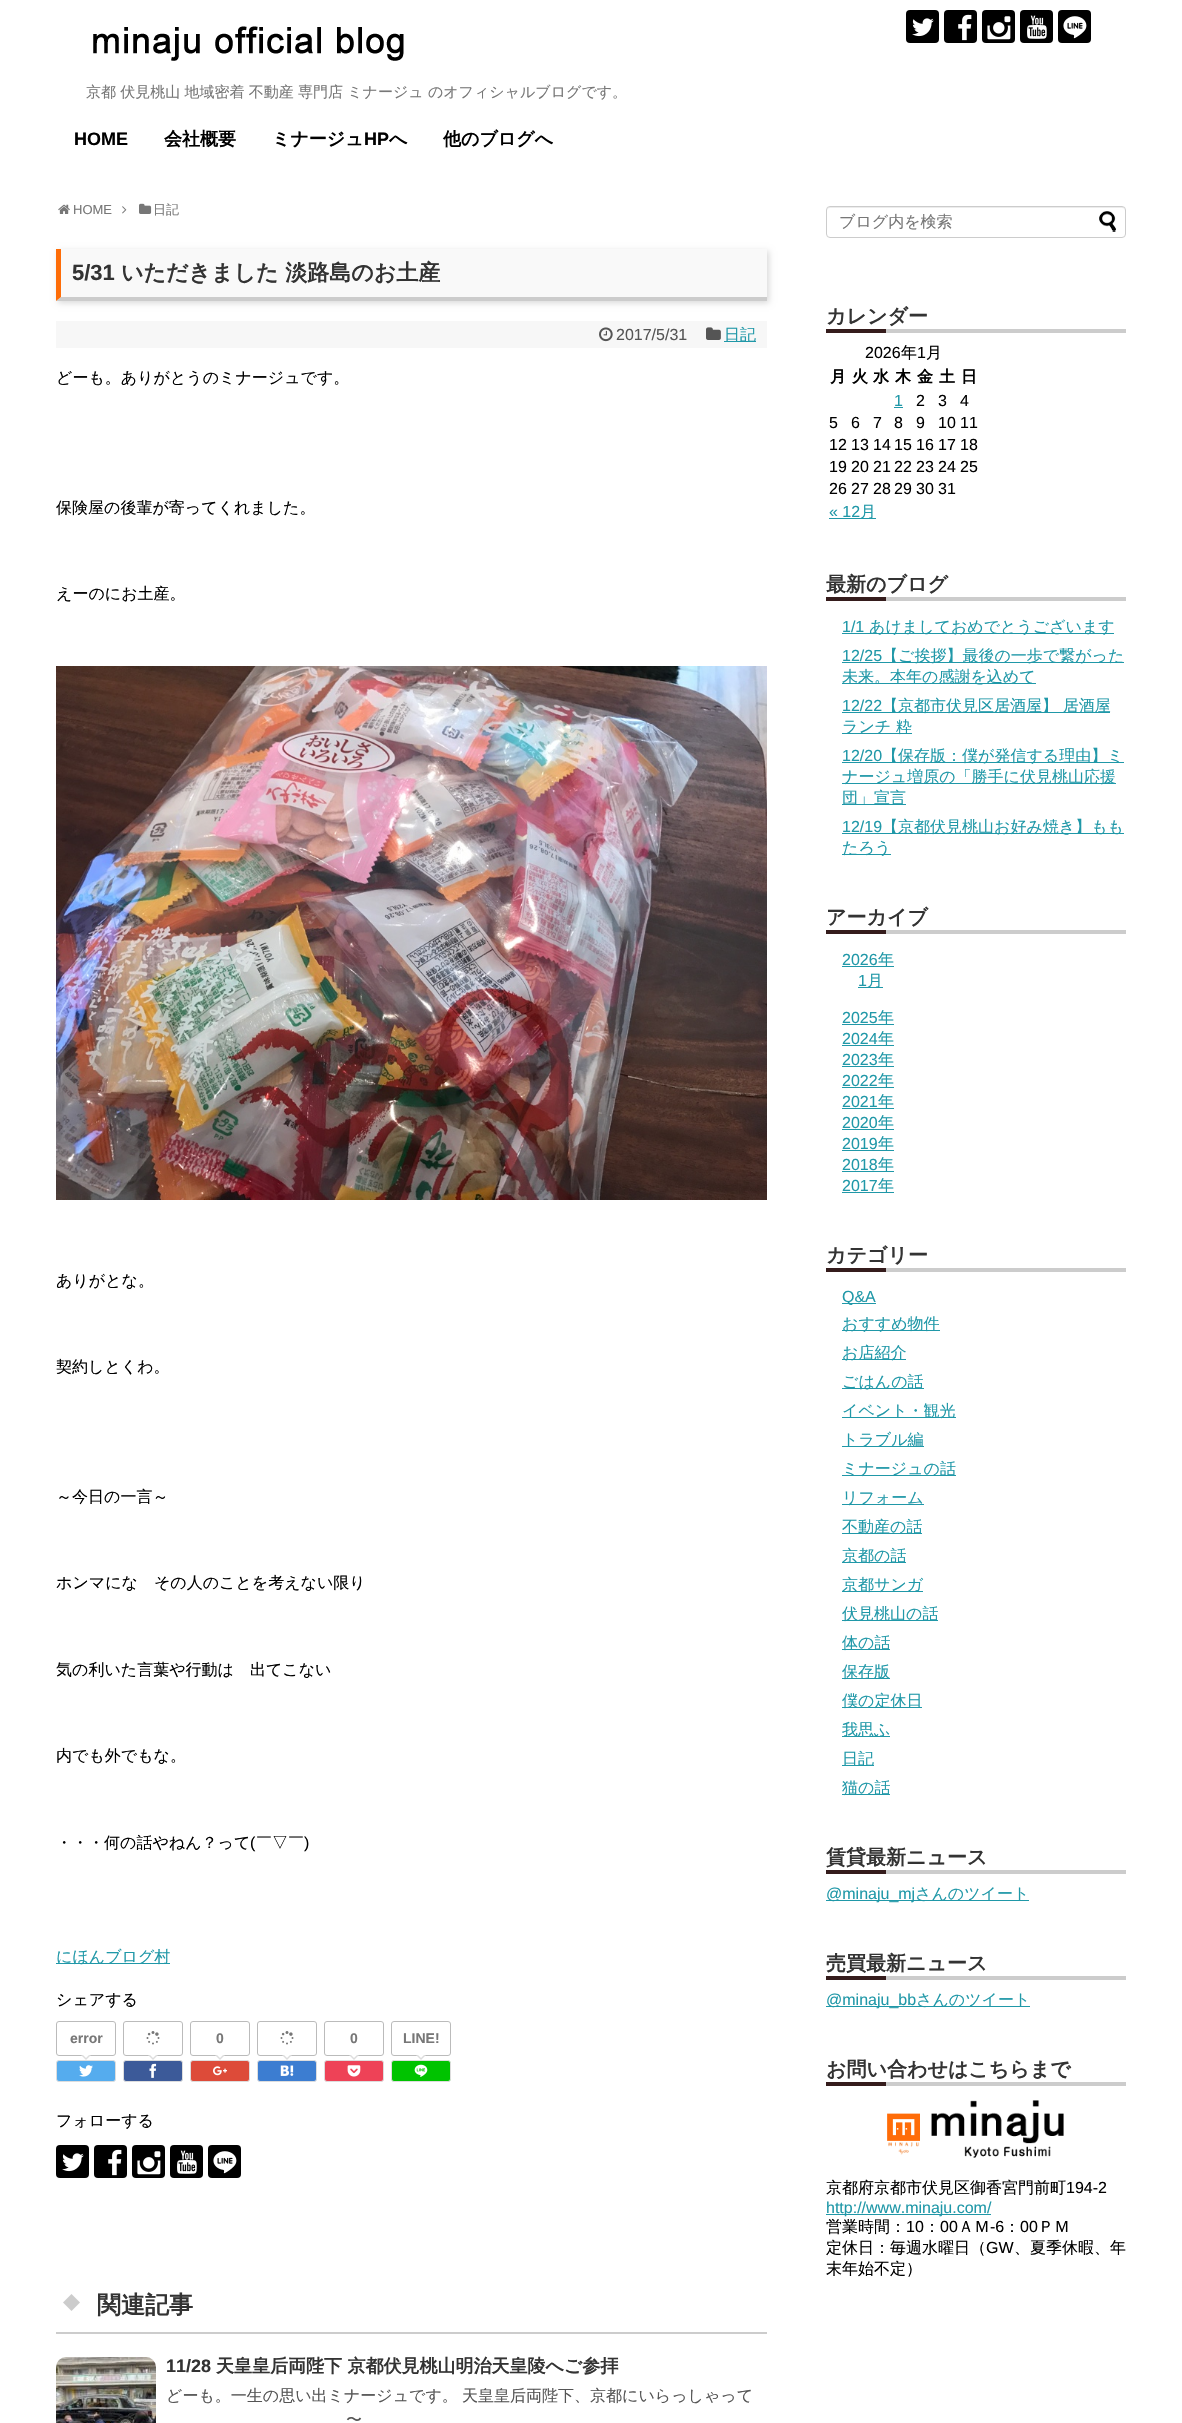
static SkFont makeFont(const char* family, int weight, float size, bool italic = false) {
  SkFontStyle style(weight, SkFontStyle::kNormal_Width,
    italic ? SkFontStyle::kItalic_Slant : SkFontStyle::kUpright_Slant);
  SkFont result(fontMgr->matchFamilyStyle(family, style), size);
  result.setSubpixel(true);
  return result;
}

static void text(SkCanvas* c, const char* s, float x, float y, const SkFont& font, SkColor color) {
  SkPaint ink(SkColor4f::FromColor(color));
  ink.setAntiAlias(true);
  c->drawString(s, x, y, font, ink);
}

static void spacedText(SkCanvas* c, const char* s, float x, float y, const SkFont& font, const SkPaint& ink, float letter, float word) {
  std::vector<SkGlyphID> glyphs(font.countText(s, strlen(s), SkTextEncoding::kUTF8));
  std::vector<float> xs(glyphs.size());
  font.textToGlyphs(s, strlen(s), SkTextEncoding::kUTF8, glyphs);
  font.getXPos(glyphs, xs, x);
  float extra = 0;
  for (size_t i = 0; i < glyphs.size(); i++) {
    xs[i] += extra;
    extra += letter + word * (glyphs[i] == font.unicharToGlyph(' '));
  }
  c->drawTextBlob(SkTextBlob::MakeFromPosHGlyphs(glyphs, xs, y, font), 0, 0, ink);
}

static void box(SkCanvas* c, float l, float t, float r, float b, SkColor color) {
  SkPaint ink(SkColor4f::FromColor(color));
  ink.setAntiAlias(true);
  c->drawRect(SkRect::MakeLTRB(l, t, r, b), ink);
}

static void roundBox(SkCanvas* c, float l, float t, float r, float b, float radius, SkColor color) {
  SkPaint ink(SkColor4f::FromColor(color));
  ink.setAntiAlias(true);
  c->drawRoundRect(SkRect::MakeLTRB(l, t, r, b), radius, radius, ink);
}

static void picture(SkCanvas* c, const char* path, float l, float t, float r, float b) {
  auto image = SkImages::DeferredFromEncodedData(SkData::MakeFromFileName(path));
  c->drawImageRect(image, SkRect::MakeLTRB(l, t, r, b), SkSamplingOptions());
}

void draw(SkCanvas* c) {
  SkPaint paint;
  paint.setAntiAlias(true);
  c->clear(0xffffffff);
  roundBox(c, 906, 10, 939, 43, 4, 0xff000000);
  picture(c, "img_01.png", 912, 18, 934, 37);
  roundBox(c, 944, 10, 977, 43, 4, 0xff000000);
  picture(c, "img_02.png", 958, 14, 972, 41);
  roundBox(c, 982, 10, 1015, 43, 4, 0xff000000);
  picture(c, "img_03.png", 987, 16, 1011, 40);
  roundBox(c, 1020, 10, 1053, 43, 4, 0xff000000);
  picture(c, "img_04.png", 1027, 15, 1047, 39);
  roundBox(c, 1058, 10, 1091, 43, 4, 0xff000000);
  picture(c, "img_05.png", 1063, 16, 1087, 39);
  picture(c, "img_06.png", 93, 26, 404, 61);
  SkFont face1 = makeFont("WenQuanYi Zen Hei", 500, 15);
  paint.setColor(0xff777777);
  spacedText(c, "京都 伏見桃山 地域密着 不動産 専門店 ミナージュ のオフィシャルブログです。", 86, 97, face1, paint, 0, -0.25f);
  SkFont face2 = makeFont("Liberation Sans", 700, 18);
  text(c, "HOME", 74, 145, face2, 0xff000000);
  SkFont face3 = makeFont("WenQuanYi Zen Hei", 700, 18);
  text(c, "会社概要", 164, 145, face3, 0xff000000);
  text(c, "ミナージュ", 272, 145, face3, 0xff000000);
  text(c, "HP", 364, 145, face2, 0xff000000);
  text(c, "へ", 389, 145, face3, 0xff000000);
  text(c, "他のブログへ", 443, 145, face3, 0xff000000);
  picture(c, "img_07.png", 58, 204, 70, 214);
  SkFont face4 = makeFont("Liberation Sans", 400, 13);
  text(c, "HOME", 73, 214, face4, 0xff777777);
  picture(c, "img_08.png", 122, 206, 127, 214);
  picture(c, "img_09.png", 139, 203, 152, 214);
  SkFont face5 = makeFont("WenQuanYi Zen Hei", 500, 13);
  text(c, "日記", 153, 214, face5, 0xff777777);
  paint.setColor(0x26000000);
  paint.setMaskFilter(SkMaskFilter::MakeBlur(kNormal_SkBlurStyle, 3));
  c->drawRect(SkRect::MakeLTRB(58, 251, 769, 303), paint);
  paint.setMaskFilter(nullptr);
  box(c, 56, 249, 767, 301, 0xfff9f9f9);
  paint.setColor(0xffcccccc);
  c->drawPath(SkPathBuilder().moveTo(767, 301).lineTo(56, 301).lineTo(61, 297).lineTo(767, 297).close().detach(), paint);
  paint.setColor(0xfffe6d08);
  c->drawPath(SkPathBuilder().moveTo(56, 301).lineTo(56, 249).lineTo(61, 249).lineTo(61, 297).close().detach(), paint);
  SkFont face6 = makeFont("Liberation Sans", 700, 22);
  text(c, "5/31", 72, 280, face6, 0xff333333);
  SkFont face7 = makeFont("WenQuanYi Zen Hei", 700, 22);
  text(c, "いただきました 淡路島のお土産", 121, 280, face7, 0xff333333);
  box(c, 56, 321, 767, 348, 0xfff7f7f7);
  picture(c, "img_10.png", 599, 327, 613, 342);
  SkFont face8 = makeFont("Liberation Sans", 400, 16);
  text(c, "2017/5/31", 616, 340, face8, 0xff555555);
  picture(c, "img_11.png", 706, 327, 721, 340);
  box(c, 724, 341, 756, 342, 0xff2098a8);
  SkFont face9 = makeFont("WenQuanYi Zen Hei", 500, 16);
  text(c, "日記", 724, 340, face9, 0xff2098a8);
  text(c, "どーも。ありがとうのミナージュです。", 56, 383, face9, 0xff000000);
  text(c, "保険屋の後輩が寄ってくれました。", 56, 513, face9, 0xff000000);
  text(c, "えーのにお土産。", 56, 599, face9, 0xff000000);
  picture(c, "img_12.png", 56, 666, 767, 1200);
  text(c, "ありがとな。", 56, 1286, face9, 0xff000000);
  text(c, "契約しとくわ。", 56, 1372, face9, 0xff000000);
  text(c, "～今日の一言～", 56, 1502, face9, 0xff000000);
  text(c, "ホンマにな　その人のことを考えない限り", 56, 1588, face9, 0xff000000);
  text(c, "気の利いた言葉や行動は　出てこない", 56, 1675, face9, 0xff000000);
  text(c, "内でも外でもな。", 56, 1761, face9, 0xff000000);
  text(c, "・・・何の話やねん？って", 56, 1848, face9, 0xff000000);
  text(c, "(", 250, 1848, face8, 0xff000000);
  text(c, "￣▽￣", 256, 1848, face9, 0xff000000);
  text(c, ")", 304, 1848, face8, 0xff000000);
  box(c, 56, 1963, 170, 1964, 0xff2098a8);
  text(c, "にほんブログ村", 56, 1962, face9, 0xff2098a8);
  text(c, "シェアする", 56, 2005, face9, 0xff000000);
  paint.setStyle(SkPaint::kStroke_Style);
  paint.setStrokeWidth(1);
  paint.setColor(0xffbbbbbb);
  c->drawRoundRect(SkRect::MakeLTRB(56.5f, 2021.5f, 115.5f, 2055.5f), 2.5f, 2.5f, paint);
  SkFont face10 = makeFont("Liberation Sans", 700, 14);
  text(c, "error", 70, 2043, face10, 0xff777777);
  paint.setStyle(SkPaint::kFill_Style);
  paint.setColor(0xffdddddd);
  c->drawPath(SkPathBuilder().moveTo(81, 2055).lineTo(91, 2055).lineTo(86, 2060).close().detach(), paint);
  paint.setColor(0xffffffff);
  c->drawPath(SkPathBuilder().moveTo(83, 2055).lineTo(89, 2055).lineTo(86, 2058).close().detach(), paint);
  paint.setColor(0xff55acee);
  c->drawRoundRect(SkRect::MakeLTRB(56.5f, 2060.5f, 115.5f, 2081.5f), 2.5f, 2.5f, paint);
  paint.setStyle(SkPaint::kStroke_Style);
  paint.setColor(0xffdddddd);
  c->drawRoundRect(SkRect::MakeLTRB(56.5f, 2060.5f, 115.5f, 2081.5f), 2.5f, 2.5f, paint);
  picture(c, "img_13.png", 79, 2065, 93, 2077);
  paint.setColor(0xffbbbbbb);
  c->drawRoundRect(SkRect::MakeLTRB(123.5f, 2021.5f, 182.5f, 2055.5f), 2.5f, 2.5f, paint);
  picture(c, "img_14.png", 146, 2031, 160, 2045);
  paint.setStyle(SkPaint::kFill_Style);
  paint.setColor(0xffdddddd);
  c->drawPath(SkPathBuilder().moveTo(148, 2055).lineTo(158, 2055).lineTo(153, 2060).close().detach(), paint);
  paint.setColor(0xffffffff);
  c->drawPath(SkPathBuilder().moveTo(150, 2055).lineTo(156, 2055).lineTo(153, 2058).close().detach(), paint);
  paint.setColor(0xff3c5a99);
  c->drawRoundRect(SkRect::MakeLTRB(123.5f, 2060.5f, 182.5f, 2081.5f), 2.5f, 2.5f, paint);
  paint.setStyle(SkPaint::kStroke_Style);
  paint.setColor(0xffdddddd);
  c->drawRoundRect(SkRect::MakeLTRB(123.5f, 2060.5f, 182.5f, 2081.5f), 2.5f, 2.5f, paint);
  picture(c, "img_15.png", 149, 2063, 157, 2078);
  paint.setColor(0xffbbbbbb);
  c->drawRoundRect(SkRect::MakeLTRB(190.5f, 2021.5f, 249.5f, 2055.5f), 2.5f, 2.5f, paint);
  text(c, "0", 216, 2043, face10, 0xff777777);
  paint.setStyle(SkPaint::kFill_Style);
  paint.setColor(0xffdddddd);
  c->drawPath(SkPathBuilder().moveTo(215, 2055).lineTo(225, 2055).lineTo(220, 2060).close().detach(), paint);
  paint.setColor(0xffffffff);
  c->drawPath(SkPathBuilder().moveTo(217, 2055).lineTo(223, 2055).lineTo(220, 2058).close().detach(), paint);
  paint.setColor(0xffdd4b39);
  c->drawRoundRect(SkRect::MakeLTRB(190.5f, 2060.5f, 249.5f, 2081.5f), 2.5f, 2.5f, paint);
  paint.setStyle(SkPaint::kStroke_Style);
  paint.setColor(0xffdddddd);
  c->drawRoundRect(SkRect::MakeLTRB(190.5f, 2060.5f, 249.5f, 2081.5f), 2.5f, 2.5f, paint);
  picture(c, "img_16.png", 213, 2066, 227, 2076);
  paint.setColor(0xffbbbbbb);
  c->drawRoundRect(SkRect::MakeLTRB(257.5f, 2021.5f, 316.5f, 2055.5f), 2.5f, 2.5f, paint);
  picture(c, "img_14.png", 280, 2031, 294, 2045);
  paint.setStyle(SkPaint::kFill_Style);
  paint.setColor(0xffdddddd);
  c->drawPath(SkPathBuilder().moveTo(282, 2055).lineTo(292, 2055).lineTo(287, 2060).close().detach(), paint);
  paint.setColor(0xffffffff);
  c->drawPath(SkPathBuilder().moveTo(284, 2055).lineTo(290, 2055).lineTo(287, 2058).close().detach(), paint);
  paint.setColor(0xff3c7dd1);
  c->drawRoundRect(SkRect::MakeLTRB(257.5f, 2060.5f, 316.5f, 2081.5f), 2.5f, 2.5f, paint);
  paint.setStyle(SkPaint::kStroke_Style);
  paint.setColor(0xffdddddd);
  c->drawRoundRect(SkRect::MakeLTRB(257.5f, 2060.5f, 316.5f, 2081.5f), 2.5f, 2.5f, paint);
  picture(c, "img_17.png", 280, 2065, 294, 2076);
  paint.setColor(0xffbbbbbb);
  c->drawRoundRect(SkRect::MakeLTRB(324.5f, 2021.5f, 383.5f, 2055.5f), 2.5f, 2.5f, paint);
  text(c, "0", 350, 2043, face10, 0xff777777);
  paint.setStyle(SkPaint::kFill_Style);
  paint.setColor(0xffdddddd);
  c->drawPath(SkPathBuilder().moveTo(349, 2055).lineTo(359, 2055).lineTo(354, 2060).close().detach(), paint);
  paint.setColor(0xffffffff);
  c->drawPath(SkPathBuilder().moveTo(351, 2055).lineTo(357, 2055).lineTo(354, 2058).close().detach(), paint);
  paint.setColor(0xffee4257);
  c->drawRoundRect(SkRect::MakeLTRB(324.5f, 2060.5f, 383.5f, 2081.5f), 2.5f, 2.5f, paint);
  paint.setStyle(SkPaint::kStroke_Style);
  paint.setColor(0xffdddddd);
  c->drawRoundRect(SkRect::MakeLTRB(324.5f, 2060.5f, 383.5f, 2081.5f), 2.5f, 2.5f, paint);
  picture(c, "img_18.png", 347, 2065, 361, 2077);
  paint.setColor(0xffbbbbbb);
  c->drawRoundRect(SkRect::MakeLTRB(391.5f, 2021.5f, 450.5f, 2055.5f), 2.5f, 2.5f, paint);
  text(c, "LINE!", 403, 2043, face10, 0xff777777);
  paint.setStyle(SkPaint::kFill_Style);
  paint.setColor(0xffdddddd);
  c->drawPath(SkPathBuilder().moveTo(416, 2055).lineTo(426, 2055).lineTo(421, 2060).close().detach(), paint);
  paint.setColor(0xffffffff);
  c->drawPath(SkPathBuilder().moveTo(418, 2055).lineTo(424, 2055).lineTo(421, 2058).close().detach(), paint);
  paint.setColor(0xff00c300);
  c->drawRoundRect(SkRect::MakeLTRB(391.5f, 2060.5f, 450.5f, 2081.5f), 2.5f, 2.5f, paint);
  paint.setStyle(SkPaint::kStroke_Style);
  paint.setColor(0xffdddddd);
  c->drawRoundRect(SkRect::MakeLTRB(391.5f, 2060.5f, 450.5f, 2081.5f), 2.5f, 2.5f, paint);
  picture(c, "img_19.png", 414, 2064, 428, 2077);
  text(c, "フォローする", 56, 2126, face9, 0xff000000);
  roundBox(c, 56, 2145, 89, 2178, 4, 0xff000000);
  picture(c, "img_01.png", 62, 2153, 84, 2172);
  roundBox(c, 94, 2145, 127, 2178, 4, 0xff000000);
  picture(c, "img_02.png", 108, 2149, 122, 2176);
  roundBox(c, 132, 2145, 165, 2178, 4, 0xff000000);
  picture(c, "img_03.png", 137, 2151, 161, 2175);
  roundBox(c, 170, 2145, 203, 2178, 4, 0xff000000);
  picture(c, "img_04.png", 177, 2150, 197, 2174);
  roundBox(c, 208, 2145, 241, 2178, 4, 0xff000000);
  picture(c, "img_05.png", 213, 2151, 237, 2174);
  box(c, 56, 2332, 767, 2334, 0xffcccccc);
  paint.setStyle(SkPaint::kFill_Style);
  paint.setColor(0xffcccccc);
  c->drawPath(SkPathBuilder().moveTo(71.5f, 2294).lineTo(80, 2302.5f).lineTo(71.5f, 2311).lineTo(63, 2302.5f).close().detach(), paint);
  SkFont face11 = makeFont("WenQuanYi Zen Hei", 700, 24);
  text(c, "関連記事", 97, 2313, face11, 0xff333333);
  picture(c, "img_20.png", 56, 2357, 156, 2423);
  text(c, "11/28", 166, 2372, face2, 0xff333333);
  text(c, "天皇皇后両陛下 京都伏見桃山明治天皇陵へご参拝", 216, 2372, face3, 0xff333333);
  text(c, "どーも。一生の思い出ミナージュです。", 166, 2401, face9, 0xff555555);
  text(c, "天皇皇后両陛下、京都にいらっしゃって", 462, 2401, face9, 0xff555555);
  text(c, "〜", 346, 2425, face9, 0xff555555);
  paint.setColor(0xffececec);
  c->drawPath(SkPathBuilder().moveTo(830, 208).lineTo(1122, 208).cubicTo(1124, 208, 1125, 209, 1125, 211).lineTo(1124, 208).lineTo(1123, 207).lineTo(830, 207).cubicTo(828, 207, 827, 209, 827, 211).cubicTo(827, 209, 828, 208, 830, 208).close().detach(), paint);
  paint.setStyle(SkPaint::kStroke_Style);
  paint.setColor(0xffcccccc);
  c->drawRoundRect(SkRect::MakeLTRB(826.5f, 206.5f, 1125.5f, 237.5f), 3.5f, 3.5f, paint);
  text(c, "ブログ内を検索", 839, 227, face9, 0xff777777);
  picture(c, "img_21.png", 1099, 211, 1116, 232);
  box(c, 886, 329, 1126, 333, 0xffcccccc);
  SkFont face12 = makeFont("WenQuanYi Zen Hei", 700, 20);
  text(c, "カレンダー", 826, 323, face12, 0xff333333);
  box(c, 826, 329, 886, 333, 0xff351c1c);
  text(c, "2026", 865, 358, face8, 0xff000000);
  text(c, "年", 901, 358, face9, 0xff000000);
  text(c, "1", 917, 358, face8, 0xff000000);
  text(c, "月", 926, 358, face9, 0xff000000);
  SkFont face13 = makeFont("WenQuanYi Zen Hei", 700, 16);
  text(c, "月", 830, 382, face13, 0xff000000);
  text(c, "火", 852, 382, face13, 0xff000000);
  text(c, "水", 873, 382, face13, 0xff000000);
  text(c, "木", 895, 382, face13, 0xff000000);
  text(c, "金", 917, 382, face13, 0xff000000);
  text(c, "土", 939, 382, face13, 0xff000000);
  text(c, "日", 961, 382, face13, 0xff000000);
  text(c, "1", 894, 406, face8, 0xff2098a8);
  box(c, 894, 407, 903, 408, 0xff2098a8);
  text(c, "2", 916, 406, face8, 0xff000000);
  text(c, "3", 938, 406, face8, 0xff000000);
  text(c, "4", 960, 406, face8, 0xff000000);
  text(c, "5", 829, 428, face8, 0xff000000);
  text(c, "6", 851, 428, face8, 0xff000000);
  text(c, "7", 873, 428, face8, 0xff000000);
  text(c, "8", 894, 428, face8, 0xff000000);
  text(c, "9", 916, 428, face8, 0xff000000);
  text(c, "10", 938, 428, face8, 0xff000000);
  text(c, "11", 960, 428, face8, 0xff000000);
  text(c, "12", 829, 450, face8, 0xff000000);
  text(c, "13", 851, 450, face8, 0xff000000);
  text(c, "14", 873, 450, face8, 0xff000000);
  text(c, "15", 894, 450, face8, 0xff000000);
  text(c, "16", 916, 450, face8, 0xff000000);
  text(c, "17", 938, 450, face8, 0xff000000);
  text(c, "18", 960, 450, face8, 0xff000000);
  text(c, "19", 829, 472, face8, 0xff000000);
  text(c, "20", 851, 472, face8, 0xff000000);
  text(c, "21", 873, 472, face8, 0xff000000);
  text(c, "22", 894, 472, face8, 0xff000000);
  text(c, "23", 916, 472, face8, 0xff000000);
  text(c, "24", 938, 472, face8, 0xff000000);
  text(c, "25", 960, 472, face8, 0xff000000);
  text(c, "26", 829, 494, face8, 0xff000000);
  text(c, "27", 851, 494, face8, 0xff000000);
  text(c, "28", 873, 494, face8, 0xff000000);
  text(c, "29", 894, 494, face8, 0xff000000);
  text(c, "30", 916, 494, face8, 0xff000000);
  text(c, "31", 938, 494, face8, 0xff000000);
  text(c, "« 12", 829, 517, face8, 0xff2098a8);
  box(c, 829, 518, 876, 519, 0xff2098a8);
  text(c, "月", 860, 517, face9, 0xff2098a8);
  box(c, 886, 597, 1126, 601, 0xffcccccc);
  text(c, "最新のブログ", 826, 591, face12, 0xff333333);
  box(c, 826, 597, 886, 601, 0xff351c1c);
  text(c, "1/1", 842, 632, face8, 0xff2098a8);
  box(c, 842, 633, 1114, 634, 0xff2098a8);
  text(c, "あけましておめでとうございます", 869, 632, face9, 0xff2098a8);
  text(c, "12/25", 842, 661, face8, 0xff2098a8);
  box(c, 842, 662, 1124, 663, 0xff2098a8);
  text(c, "【ご挨拶】最後の一歩で繋がった", 882, 661, face9, 0xff2098a8);
  box(c, 842, 683, 1036, 684, 0xff2098a8);
  text(c, "未来。本年の感謝を込めて", 842, 682, face9, 0xff2098a8);
  text(c, "12/22", 842, 711, face8, 0xff2098a8);
  box(c, 842, 712, 1110, 713, 0xff2098a8);
  text(c, "【京都市伏見区居酒屋】 居酒屋", 882, 711, face9, 0xff2098a8);
  box(c, 842, 733, 912, 734, 0xff2098a8);
  text(c, "ランチ 粋", 842, 732, face9, 0xff2098a8);
  text(c, "12/20", 842, 761, face8, 0xff2098a8);
  box(c, 842, 762, 1124, 763, 0xff2098a8);
  text(c, "【保存版：僕が発信する理由】ミ", 882, 761, face9, 0xff2098a8);
  box(c, 842, 783, 1116, 784, 0xff2098a8);
  text(c, "ナージュ増原の「勝手に伏見桃山応援", 842, 782, face9, 0xff2098a8);
  box(c, 842, 804, 906, 805, 0xff2098a8);
  text(c, "団」宣言", 842, 803, face9, 0xff2098a8);
  text(c, "12/19", 842, 832, face8, 0xff2098a8);
  box(c, 842, 833, 1124, 834, 0xff2098a8);
  text(c, "【京都伏見桃山お好み焼き】もも", 882, 832, face9, 0xff2098a8);
  box(c, 842, 854, 891, 855, 0xff2098a8);
  text(c, "たろう", 842, 853, face9, 0xff2098a8);
  box(c, 886, 930, 1126, 934, 0xffcccccc);
  text(c, "アーカイブ", 826, 924, face12, 0xff333333);
  box(c, 826, 930, 886, 934, 0xff351c1c);
  text(c, "2026", 842, 965, face8, 0xff2098a8);
  box(c, 842, 966, 894, 967, 0xff2098a8);
  text(c, "年", 878, 965, face9, 0xff2098a8);
  text(c, "1", 858, 986, face8, 0xff2098a8);
  box(c, 858, 987, 883, 988, 0xff2098a8);
  text(c, "月", 867, 986, face9, 0xff2098a8);
  text(c, "2025", 842, 1023, face8, 0xff2098a8);
  box(c, 842, 1024, 894, 1025, 0xff2098a8);
  text(c, "年", 878, 1023, face9, 0xff2098a8);
  text(c, "2024", 842, 1044, face8, 0xff2098a8);
  box(c, 842, 1045, 894, 1046, 0xff2098a8);
  text(c, "年", 878, 1044, face9, 0xff2098a8);
  text(c, "2023", 842, 1065, face8, 0xff2098a8);
  box(c, 842, 1066, 894, 1067, 0xff2098a8);
  text(c, "年", 878, 1065, face9, 0xff2098a8);
  text(c, "2022", 842, 1086, face8, 0xff2098a8);
  box(c, 842, 1087, 894, 1088, 0xff2098a8);
  text(c, "年", 878, 1086, face9, 0xff2098a8);
  text(c, "2021", 842, 1107, face8, 0xff2098a8);
  box(c, 842, 1108, 894, 1109, 0xff2098a8);
  text(c, "年", 878, 1107, face9, 0xff2098a8);
  text(c, "2020", 842, 1128, face8, 0xff2098a8);
  box(c, 842, 1129, 894, 1130, 0xff2098a8);
  text(c, "年", 878, 1128, face9, 0xff2098a8);
  text(c, "2019", 842, 1149, face8, 0xff2098a8);
  box(c, 842, 1150, 894, 1151, 0xff2098a8);
  text(c, "年", 878, 1149, face9, 0xff2098a8);
  text(c, "2018", 842, 1170, face8, 0xff2098a8);
  box(c, 842, 1171, 894, 1172, 0xff2098a8);
  text(c, "年", 878, 1170, face9, 0xff2098a8);
  text(c, "2017", 842, 1191, face8, 0xff2098a8);
  box(c, 842, 1192, 894, 1193, 0xff2098a8);
  text(c, "年", 878, 1191, face9, 0xff2098a8);
  box(c, 886, 1268, 1126, 1272, 0xffcccccc);
  text(c, "カテゴリー", 826, 1262, face12, 0xff333333);
  box(c, 826, 1268, 886, 1272, 0xff351c1c);
  box(c, 842, 1303, 876, 1304, 0xff2098a8);
  text(c, "Q&A", 842, 1302, face8, 0xff2098a8);
  box(c, 842, 1330, 940, 1331, 0xff2098a8);
  text(c, "おすすめ物件", 842, 1329, face9, 0xff2098a8);
  box(c, 842, 1359, 906, 1360, 0xff2098a8);
  text(c, "お店紹介", 842, 1358, face9, 0xff2098a8);
  box(c, 842, 1388, 924, 1389, 0xff2098a8);
  text(c, "ごはんの話", 842, 1387, face9, 0xff2098a8);
  box(c, 842, 1417, 956, 1418, 0xff2098a8);
  text(c, "イベント・観光", 842, 1416, face9, 0xff2098a8);
  box(c, 842, 1446, 924, 1447, 0xff2098a8);
  text(c, "トラブル編", 842, 1445, face9, 0xff2098a8);
  box(c, 842, 1475, 956, 1476, 0xff2098a8);
  text(c, "ミナージュの話", 842, 1474, face9, 0xff2098a8);
  box(c, 842, 1504, 924, 1505, 0xff2098a8);
  text(c, "リフォーム", 842, 1503, face9, 0xff2098a8);
  box(c, 842, 1533, 922, 1534, 0xff2098a8);
  text(c, "不動産の話", 842, 1532, face9, 0xff2098a8);
  box(c, 842, 1562, 906, 1563, 0xff2098a8);
  text(c, "京都の話", 842, 1561, face9, 0xff2098a8);
  box(c, 842, 1591, 923, 1592, 0xff2098a8);
  text(c, "京都サンガ", 842, 1590, face9, 0xff2098a8);
  box(c, 842, 1620, 938, 1621, 0xff2098a8);
  text(c, "伏見桃山の話", 842, 1619, face9, 0xff2098a8);
  box(c, 842, 1649, 890, 1650, 0xff2098a8);
  text(c, "体の話", 842, 1648, face9, 0xff2098a8);
  box(c, 842, 1678, 890, 1679, 0xff2098a8);
  text(c, "保存版", 842, 1677, face9, 0xff2098a8);
  box(c, 842, 1707, 922, 1708, 0xff2098a8);
  text(c, "僕の定休日", 842, 1706, face9, 0xff2098a8);
  box(c, 842, 1736, 890, 1737, 0xff2098a8);
  text(c, "我思ふ", 842, 1735, face9, 0xff2098a8);
  box(c, 842, 1765, 874, 1766, 0xff2098a8);
  text(c, "日記", 842, 1764, face9, 0xff2098a8);
  box(c, 842, 1794, 890, 1795, 0xff2098a8);
  text(c, "猫の話", 842, 1793, face9, 0xff2098a8);
  box(c, 886, 1870, 1126, 1874, 0xffcccccc);
  text(c, "賃貸最新ニュース", 826, 1864, face12, 0xff333333);
  box(c, 826, 1870, 886, 1874, 0xff351c1c);
  box(c, 826, 1900, 1029, 1901, 0xff2098a8);
  text(c, "@minaju_mj", 826, 1899, face8, 0xff2098a8);
  text(c, "さんのツイート", 915, 1899, face9, 0xff2098a8);
  box(c, 886, 1976, 1126, 1980, 0xffcccccc);
  text(c, "売買最新ニュース", 826, 1970, face12, 0xff333333);
  box(c, 826, 1976, 886, 1980, 0xff351c1c);
  box(c, 826, 2006, 1030, 2007, 0xff2098a8);
  text(c, "@minaju_bb", 826, 2005, face8, 0xff2098a8);
  text(c, "さんのツイート", 916, 2005, face9, 0xff2098a8);
  box(c, 886, 2082, 1126, 2086, 0xffcccccc);
  text(c, "お問い合わせはこちらまで", 826, 2076, face12, 0xff333333);
  box(c, 826, 2082, 886, 2086, 0xff351c1c);
  picture(c, "img_22.png", 887, 2100, 1064, 2158);
  text(c, "京都府京都市伏見区御香宮門前町", 826, 2193, face9, 0xff000000);
  text(c, "194-2", 1066, 2193, face8, 0xff000000);
  box(c, 826, 2214, 991, 2215, 0xff2098a8);
  text(c, "http://www.minaju.com/", 826, 2213, face8, 0xff2098a8);
  text(c, "営業時間：", 826, 2232, face9, 0xff000000);
  text(c, "10", 906, 2232, face8, 0xff000000);
  text(c, "：", 924, 2232, face9, 0xff000000);
  text(c, "00", 940, 2232, face8, 0xff000000);
  text(c, "ＡＭ", 958, 2232, face9, 0xff000000);
  text(c, "-6", 990, 2232, face8, 0xff000000);
  text(c, "：", 1004, 2232, face9, 0xff000000);
  text(c, "00", 1020, 2232, face8, 0xff000000);
  text(c, "ＰＭ", 1038, 2232, face9, 0xff000000);
  text(c, "定休日：毎週水曜日（", 826, 2253, face9, 0xff000000);
  text(c, "GW", 986, 2253, face8, 0xff000000);
  text(c, "、夏季休暇、年", 1014, 2253, face9, 0xff000000);
  text(c, "末年始不定）", 826, 2274, face9, 0xff000000);
}
